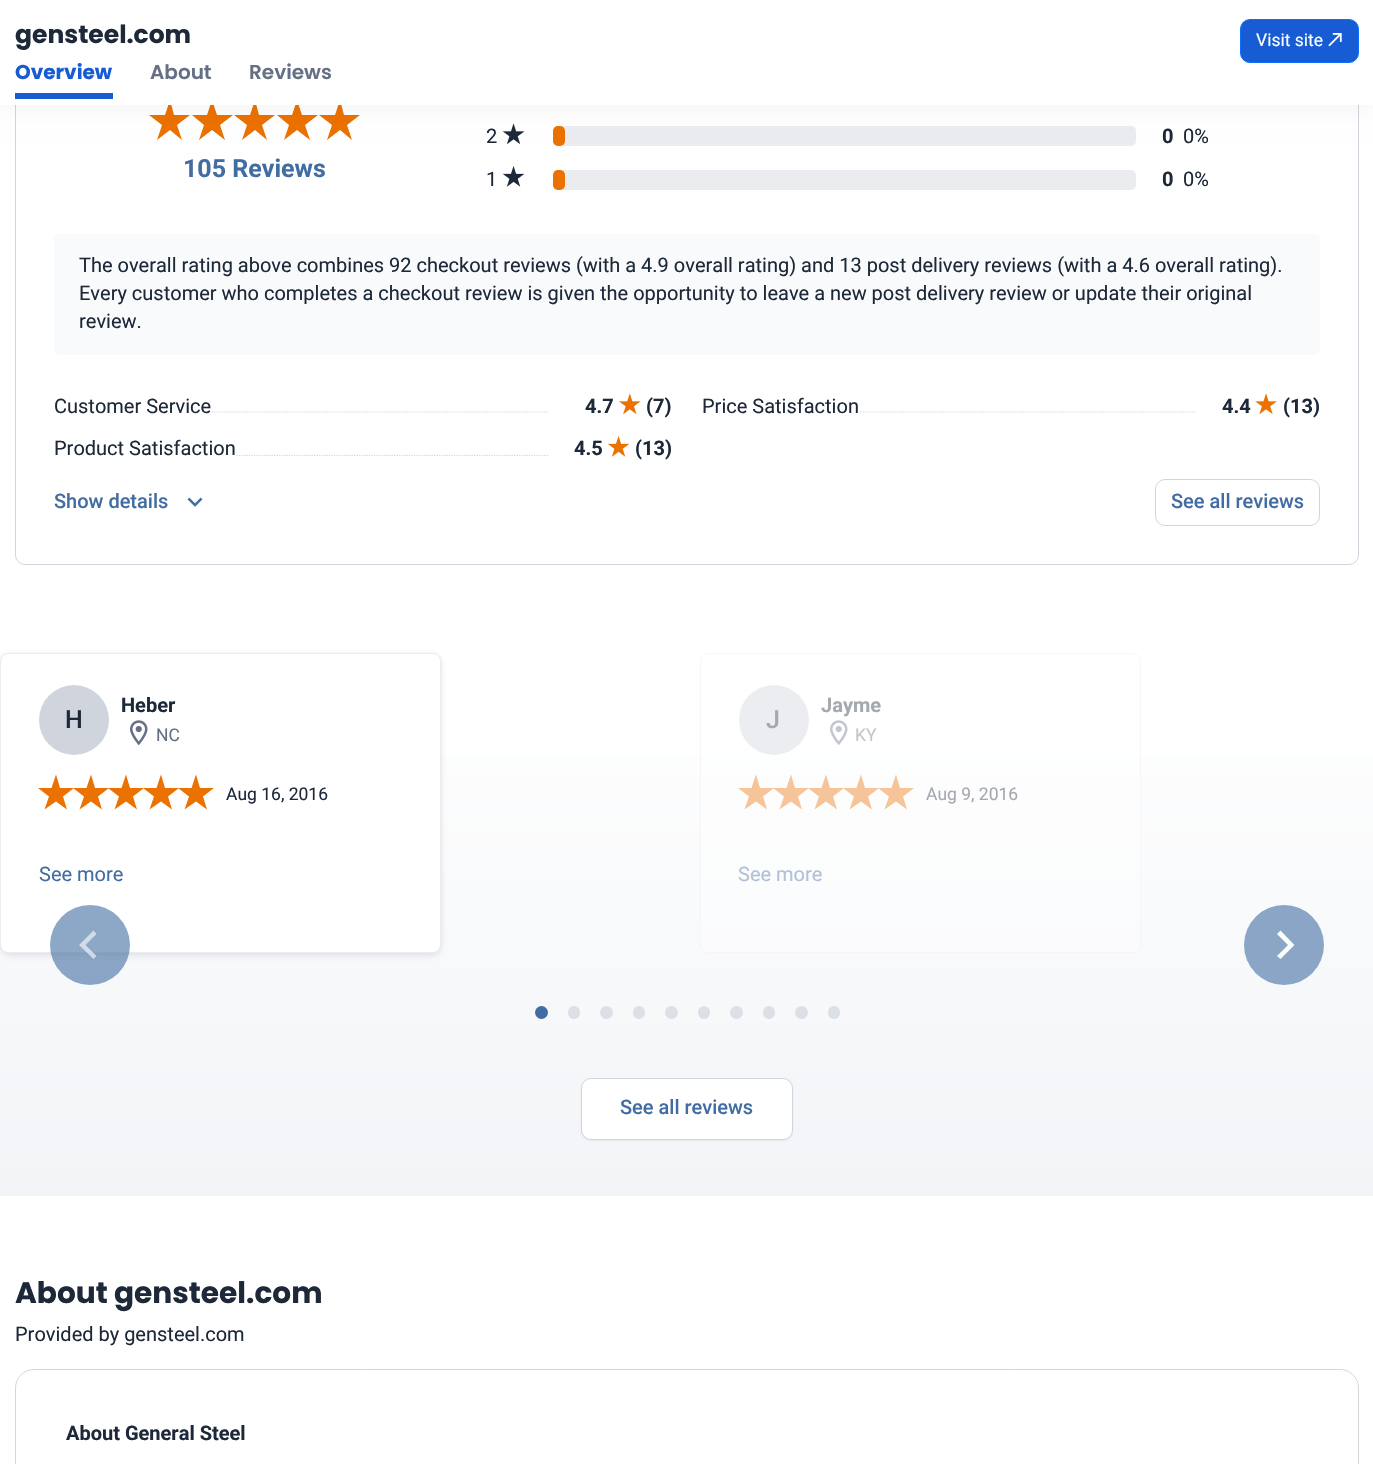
static SkFont makeFont(const char* family, int weight, float size, bool italic = false) {
  SkFontStyle style(weight, SkFontStyle::kNormal_Width,
    italic ? SkFontStyle::kItalic_Slant : SkFontStyle::kUpright_Slant);
  SkFont result(fontMgr->matchFamilyStyle(family, style), size);
  result.setSubpixel(true);
  return result;
}

static void text(SkCanvas* c, const char* s, float x, float y, const SkFont& font, SkColor color) {
  SkPaint ink(SkColor4f::FromColor(color));
  ink.setAntiAlias(true);
  c->drawString(s, x, y, font, ink);
}

static void box(SkCanvas* c, float l, float t, float r, float b, SkColor color) {
  SkPaint ink(SkColor4f::FromColor(color));
  ink.setAntiAlias(true);
  c->drawRect(SkRect::MakeLTRB(l, t, r, b), ink);
}

static void roundBox(SkCanvas* c, float l, float t, float r, float b, float radius, SkColor color) {
  SkPaint ink(SkColor4f::FromColor(color));
  ink.setAntiAlias(true);
  c->drawRoundRect(SkRect::MakeLTRB(l, t, r, b), radius, radius, ink);
}

static void picture(SkCanvas* c, const char* path, float l, float t, float r, float b) {
  auto image = SkImages::DeferredFromEncodedData(SkData::MakeFromFileName(path));
  c->drawImageRect(image, SkRect::MakeLTRB(l, t, r, b), SkSamplingOptions());
}

void draw(SkCanvas* c) {
  SkPaint paint;
  paint.setAntiAlias(true);
  c->clear(0xffffffff);
  paint.setStyle(SkPaint::kStroke_Style);
  paint.setStrokeWidth(1);
  paint.setColor(0xffd0d5dd);
  c->drawRoundRect(SkRect::MakeLTRB(15.5f, -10.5f, 1358.5f, 564.5f), 9.5f, 9.5f, paint);
  paint.setStyle(SkPaint::kFill_Style);
  paint.setColor(0xffeb7100);
  c->drawPath(SkPathBuilder().moveTo(170, 100).lineTo(174, 115).lineTo(190, 115).lineTo(177, 125).lineTo(182, 140).lineTo(170, 130).lineTo(157, 140).lineTo(162, 125).lineTo(149, 115).lineTo(165, 115).close().detach(), paint);
  c->drawPath(SkPathBuilder().moveTo(212, 100).lineTo(217, 115).lineTo(233, 115).lineTo(220, 125).lineTo(225, 140).lineTo(212, 130).lineTo(199, 140).lineTo(204, 125).lineTo(192, 115).lineTo(207, 115).close().detach(), paint);
  c->drawPath(SkPathBuilder().moveTo(255, 100).lineTo(259, 115).lineTo(275, 115).lineTo(262, 125).lineTo(267, 140).lineTo(255, 130).lineTo(242, 140).lineTo(247, 125).lineTo(234, 115).lineTo(250, 115).close().detach(), paint);
  c->drawPath(SkPathBuilder().moveTo(297, 100).lineTo(302, 115).lineTo(318, 115).lineTo(305, 125).lineTo(310, 140).lineTo(297, 130).lineTo(284, 140).lineTo(289, 125).lineTo(277, 115).lineTo(292, 115).close().detach(), paint);
  c->drawPath(SkPathBuilder().moveTo(340, 100).lineTo(344, 115).lineTo(360, 115).lineTo(347, 125).lineTo(352, 140).lineTo(340, 130).lineTo(327, 140).lineTo(332, 125).lineTo(319, 115).lineTo(335, 115).close().detach(), paint);
  picture(c, "img_02.png", 502, 123, 525, 145);
  roundBox(c, 553, 126, 1136, 146, 5, 0xffeaecf0);
  roundBox(c, 553, 126, 565, 146, 5, 0xffeb7100);
  paint.setColor(0x0d000000);
  paint.setMaskFilter(SkMaskFilter::MakeBlur(kNormal_SkBlurStyle, 12.5f));
  c->drawRect(SkRect::MakeLTRB(-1, -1, 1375, 106), paint);
  paint.setMaskFilter(nullptr);
  box(c, 0, 0, 1373, 105, 0xffffffff);
  SkFont face1 = makeFont("Poppins", 700, 25);
  text(c, "gensteel.com", 15, 43, face1, 0xff1d2939);
  SkFont face2 = makeFont("Poppins", 700, 20);
  text(c, "Overview", 15, 79, face2, 0xff175cd3);
  box(c, 15, 93, 113, 99, 0xff175cd3);
  SkFont face3 = makeFont("Poppins", 600, 20);
  text(c, "About", 150, 79, face3, 0xff667085);
  text(c, "Reviews", 249, 79, face3, 0xff667085);
  paint.setColor(0xff175cd3);
  c->drawRoundRect(SkRect::MakeLTRB(1240.5f, 19.5f, 1358.5f, 62.5f), 9.5f, 9.5f, paint);
  paint.setStyle(SkPaint::kStroke_Style);
  paint.setColor(0xff0d6efd);
  c->drawRoundRect(SkRect::MakeLTRB(1240.5f, 19.5f, 1358.5f, 62.5f), 9.5f, 9.5f, paint);
  SkFont face4 = makeFont("Roboto", 400, 17.5f);
  text(c, "Visit site", 1256, 46, face4, 0xffffffff);
  picture(c, "img_01.png", 1328, 33, 1342, 47);
  SkFont face5 = makeFont("Roboto", 700, 25);
  text(c, "105 Reviews", 183, 177, face5, 0xff416da2);
  SkFont face6 = makeFont("Roboto", 400, 20);
  text(c, "2", 486, 143, face6, 0xff1d2939);
  SkFont face7 = makeFont("Roboto", 700, 20);
  text(c, "0", 1162, 143, face7, 0xff1d2939);
  text(c, "0%", 1183, 143, face6, 0xff1d2939);
  text(c, "1", 486, 186, face6, 0xff1d2939);
  picture(c, "img_03.png", 502, 166, 525, 187);
  roundBox(c, 553, 170, 1136, 190, 5, 0xffeaecf0);
  roundBox(c, 553, 170, 565, 190, 5, 0xffeb7100);
  text(c, "0", 1162, 186, face7, 0xff1d2939);
  text(c, "0%", 1183, 186, face6, 0xff1d2939);
  roundBox(c, 54, 234, 1320, 355, 5, 0xfff9fafb);
  text(c, "The overall rating above combines 92 checkout reviews (with a 4.9 overall rating) and 13 post delivery reviews (with a 4.6 overall rating).", 79, 272, face6, 0xff1d2939);
  text(c, "Every customer who completes a checkout review is given the opportunity to leave a new post delivery review or update their original", 79, 300, face6, 0xff1d2939);
  text(c, "review.", 79, 328, face6, 0xff1d2939);
  paint.setStrokeWidth(1.2f);
  paint.setColor(0xffd0d5dd);
  paint.setPathEffect(SkDashPathEffect::Make({{1.25f, 1.25f}}, 0));
  c->drawPath(SkPathBuilder().moveTo(54, 412).lineTo(549, 412).detach(), paint);
  paint.setPathEffect(nullptr);
  box(c, 54, 411, 211, 413, 0xffffffff);
  text(c, "Customer Service", 54, 413, face6, 0xff1d2939);
  text(c, "4.7", 585, 413, face7, 0xff1d2939);
  picture(c, "img_04.png", 619, 393, 641, 415);
  text(c, "(7)", 646, 413, face7, 0xff1d2939);
  paint.setPathEffect(SkDashPathEffect::Make({{1.25f, 1.25f}}, 0));
  c->drawPath(SkPathBuilder().moveTo(702.5f, 412).lineTo(1196, 412).detach(), paint);
  paint.setPathEffect(nullptr);
  box(c, 703, 411, 859, 413, 0xffffffff);
  text(c, "Price Satisfaction", 702, 413, face6, 0xff1d2939);
  text(c, "4.4", 1222, 413, face7, 0xff1d2939);
  picture(c, "img_05.png", 1255, 393, 1277, 415);
  text(c, "(13)", 1283, 413, face7, 0xff1d2939);
  paint.setPathEffect(SkDashPathEffect::Make({{1.25f, 1.25f}}, 0));
  c->drawPath(SkPathBuilder().moveTo(54, 455.5f).lineTo(549, 455.5f).detach(), paint);
  paint.setPathEffect(nullptr);
  box(c, 54, 454, 235, 457, 0xffffffff);
  text(c, "Product Satisfaction", 54, 455, face6, 0xff1d2939);
  text(c, "4.5", 574, 455, face7, 0xff1d2939);
  picture(c, "img_06.png", 607, 436, 630, 457);
  text(c, "(13)", 635, 455, face7, 0xff1d2939);
  SkFont face8 = makeFont("Roboto", 500, 20);
  text(c, "Show details", 54, 508, face8, 0xff416da2);
  picture(c, "img_07.png", 187, 497, 203, 507);
  paint.setStrokeWidth(1);
  c->drawRoundRect(SkRect::MakeLTRB(1155.5f, 479.5f, 1319.5f, 525.5f), 9.5f, 9.5f, paint);
  text(c, "See all reviews", 1171, 508, face8, 0xff416da2);
  paint.setStyle(SkPaint::kFill_Style);
  {
    const SkColor colors[] = {0xffffffff, 0xfff2f4f7};
    const float stops[] = {0, 1};
    const SkPoint ends[] = {{687, 653}, {687, 1196}};
    paint.setShader(SkGradientShader::MakeLinear(ends, colors, stops, 2, SkTileMode::kClamp));
    paint.setAlpha(255);
  }
  c->drawRect(SkRect::MakeLTRB(0, 757, 1373, 1196), paint);
  paint.setShader(nullptr);
  paint.setColor(0x0f101828);
  paint.setMaskFilter(SkMaskFilter::MakeBlur(kNormal_SkBlurStyle, 2.5f));
  c->drawRoundRect(SkRect::MakeLTRB(0, 653, 441, 953), 8, 8, paint);
  paint.setMaskFilter(nullptr);
  paint.setColor(0x1a101828);
  paint.setMaskFilter(SkMaskFilter::MakeBlur(kNormal_SkBlurStyle, 5));
  c->drawRoundRect(SkRect::MakeLTRB(3, 660, 439, 955), 5, 5, paint);
  paint.setMaskFilter(nullptr);
  paint.setColor(0xffffffff);
  c->drawRoundRect(SkRect::MakeLTRB(0.5f, 653.5f, 440.5f, 952.5f), 7.5f, 7.5f, paint);
  paint.setStyle(SkPaint::kStroke_Style);
  paint.setColor(0xffeaecf0);
  c->drawRoundRect(SkRect::MakeLTRB(0.5f, 653.5f, 440.5f, 952.5f), 7.5f, 7.5f, paint);
  paint.setStyle(SkPaint::kFill_Style);
  paint.setColor(0xffd0d5dd);
  c->drawCircle(74, 720, 35, paint);
  SkFont face9 = makeFont("Roboto", 500, 25);
  text(c, "H", 65, 728, face9, 0xff1d2939);
  text(c, "Heber", 121, 712, face7, 0xff1d2939);
  picture(c, "img_08.png", 130, 720, 148, 746);
  text(c, "NC", 156, 741, face4, 0xff667085);
  paint.setColor(0xffeb7100);
  c->drawPath(SkPathBuilder().moveTo(56, 774.5f).lineTo(60, 788).lineTo(74, 788).lineTo(63, 796.5f).lineTo(67, 809.5f).lineTo(56, 801.5f).lineTo(44.5f, 809.5f).lineTo(49, 796.5f).lineTo(38, 788).lineTo(51.5f, 788).close().detach(), paint);
  c->drawPath(SkPathBuilder().moveTo(91, 774.5f).lineTo(95, 788).lineTo(109, 788).lineTo(98, 796.5f).lineTo(102, 809.5f).lineTo(91, 801.5f).lineTo(79.5f, 809.5f).lineTo(84, 796.5f).lineTo(73, 788).lineTo(86.5f, 788).close().detach(), paint);
  c->drawPath(SkPathBuilder().moveTo(126, 774.5f).lineTo(130, 788).lineTo(144, 788).lineTo(133, 796.5f).lineTo(137, 809.5f).lineTo(126, 801.5f).lineTo(114.5f, 809.5f).lineTo(119, 796.5f).lineTo(108, 788).lineTo(121.5f, 788).close().detach(), paint);
  c->drawPath(SkPathBuilder().moveTo(161, 774.5f).lineTo(165, 788).lineTo(179, 788).lineTo(168, 796.5f).lineTo(172, 809.5f).lineTo(161, 801.5f).lineTo(149.5f, 809.5f).lineTo(154, 796.5f).lineTo(143, 788).lineTo(156.5f, 788).close().detach(), paint);
  c->drawPath(SkPathBuilder().moveTo(196, 774.5f).lineTo(200, 788).lineTo(214, 788).lineTo(203, 796.5f).lineTo(207, 809.5f).lineTo(196, 801.5f).lineTo(184.5f, 809.5f).lineTo(189, 796.5f).lineTo(178, 788).lineTo(191.5f, 788).close().detach(), paint);
  text(c, "Aug 16, 2016", 226, 800, face4, 0xff1d2939);
  text(c, "See more", 39, 881, face6, 0xff416da2);
  roundBox(c, 700, 653, 1141, 953, 8, 0x66ffffff);
  paint.setStyle(SkPaint::kStroke_Style);
  paint.setColor(0x66eaecf0);
  c->drawRoundRect(SkRect::MakeLTRB(700.5f, 653.5f, 1140.5f, 952.5f), 7.5f, 7.5f, paint);
  paint.setStyle(SkPaint::kFill_Style);
  paint.setColor(0xffebedf1);
  c->drawCircle(774, 720, 35, paint);
  text(c, "J", 766, 728, face9, 0xffa4a9af);
  text(c, "Jayme", 821, 712, face7, 0xffa4a9af);
  picture(c, "img_09.png", 830, 720, 848, 746);
  text(c, "KY", 855, 741, face4, 0xffc1c5ce);
  paint.setColor(0xfff5c498);
  c->drawPath(SkPathBuilder().moveTo(756, 774.5f).lineTo(760, 788).lineTo(774, 788).lineTo(763, 796.5f).lineTo(767, 809.5f).lineTo(756, 801.5f).lineTo(744.5f, 809.5f).lineTo(749, 796.5f).lineTo(738, 788).lineTo(751.5f, 788).close().detach(), paint);
  c->drawPath(SkPathBuilder().moveTo(791, 774.5f).lineTo(795, 788).lineTo(809, 788).lineTo(798, 796.5f).lineTo(802, 809.5f).lineTo(791, 801.5f).lineTo(779.5f, 809.5f).lineTo(784, 796.5f).lineTo(773, 788).lineTo(786.5f, 788).close().detach(), paint);
  c->drawPath(SkPathBuilder().moveTo(826, 774.5f).lineTo(830, 788).lineTo(844, 788).lineTo(833, 796.5f).lineTo(837, 809.5f).lineTo(826, 801.5f).lineTo(814.5f, 809.5f).lineTo(819, 796.5f).lineTo(808, 788).lineTo(821.5f, 788).close().detach(), paint);
  c->drawPath(SkPathBuilder().moveTo(861, 774.5f).lineTo(865, 788).lineTo(879, 788).lineTo(868, 796.5f).lineTo(872, 809.5f).lineTo(861, 801.5f).lineTo(849.5f, 809.5f).lineTo(854, 796.5f).lineTo(843, 788).lineTo(856.5f, 788).close().detach(), paint);
  c->drawPath(SkPathBuilder().moveTo(896, 774.5f).lineTo(900, 788).lineTo(914, 788).lineTo(903, 796.5f).lineTo(907, 809.5f).lineTo(896, 801.5f).lineTo(884.5f, 809.5f).lineTo(889, 796.5f).lineTo(878, 788).lineTo(891.5f, 788).close().detach(), paint);
  text(c, "Aug 9, 2016", 926, 800, face4, 0xffa4a9af);
  text(c, "See more", 738, 881, face6, 0xffb0c2d8);
  paint.setColor(0x99416da2);
  c->drawCircle(90, 945, 40, paint);
  paint.setColor(0x99ffffff);
  c->drawPath(SkPathBuilder().moveTo(93.5f, 930.5f).lineTo(96.5f, 934).lineTo(85.5f, 945).lineTo(96.5f, 956).lineTo(93.5f, 959).lineTo(79, 945).close().detach(), paint);
  paint.setColor(0xff8aa5c5);
  c->drawCircle(1284, 945, 40, paint);
  paint.setColor(0xfffcfdfd);
  c->drawPath(SkPathBuilder().moveTo(1280.5f, 930.5f).lineTo(1277, 934).lineTo(1288, 945).lineTo(1277, 956).lineTo(1280.5f, 959).lineTo(1294.5f, 945).close().detach(), paint);
  paint.setColor(0xff416da2);
  c->drawCircle(541.5f, 1012.5f, 6.5f, paint);
  roundBox(c, 568, 1006, 580, 1019, 6, 0xffdbe0e6);
  paint.setColor(0xffdbe0e6);
  c->drawCircle(606.5f, 1012.5f, 6.5f, paint);
  roundBox(c, 633, 1006, 645, 1019, 6, 0xffdbe0e6);
  c->drawCircle(671.5f, 1012.5f, 6.5f, paint);
  roundBox(c, 698, 1006, 710, 1019, 6, 0xffdbe0e6);
  c->drawCircle(736.5f, 1012.5f, 6.5f, paint);
  roundBox(c, 763, 1006, 775, 1019, 6, 0xffdbe0e6);
  c->drawCircle(801.5f, 1012.5f, 6.5f, paint);
  roundBox(c, 828, 1006, 840, 1019, 6, 0xffdbe0e6);
  paint.setColor(0x0d101828);
  paint.setMaskFilter(SkMaskFilter::MakeBlur(kNormal_SkBlurStyle, 1));
  c->drawRoundRect(SkRect::MakeLTRB(581, 1079, 793, 1141), 10, 10, paint);
  paint.setMaskFilter(nullptr);
  paint.setColor(0xffffffff);
  c->drawRoundRect(SkRect::MakeLTRB(581.5f, 1078.5f, 792.5f, 1139.5f), 9.5f, 9.5f, paint);
  paint.setStyle(SkPaint::kStroke_Style);
  paint.setColor(0xffd0d5dd);
  c->drawRoundRect(SkRect::MakeLTRB(581.5f, 1078.5f, 792.5f, 1139.5f), 9.5f, 9.5f, paint);
  text(c, "See all reviews", 620, 1114, face8, 0xff416da2);
  SkFont face10 = makeFont("Poppins", 700, 29.6f);
  text(c, "About gensteel.com", 15, 1303, face10, 0xff1d2939);
  text(c, "Provided by gensteel.com", 15, 1341, face6, 0xff1d2939);
  paint.setColor(0xffd7d7d7);
  c->drawRoundRect(SkRect::MakeLTRB(15.5f, 1369.5f, 1358.5f, 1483.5f), 18.5f, 18.5f, paint);
  text(c, "About General Steel", 66, 1440, face7, 0xff1d2939);
}
